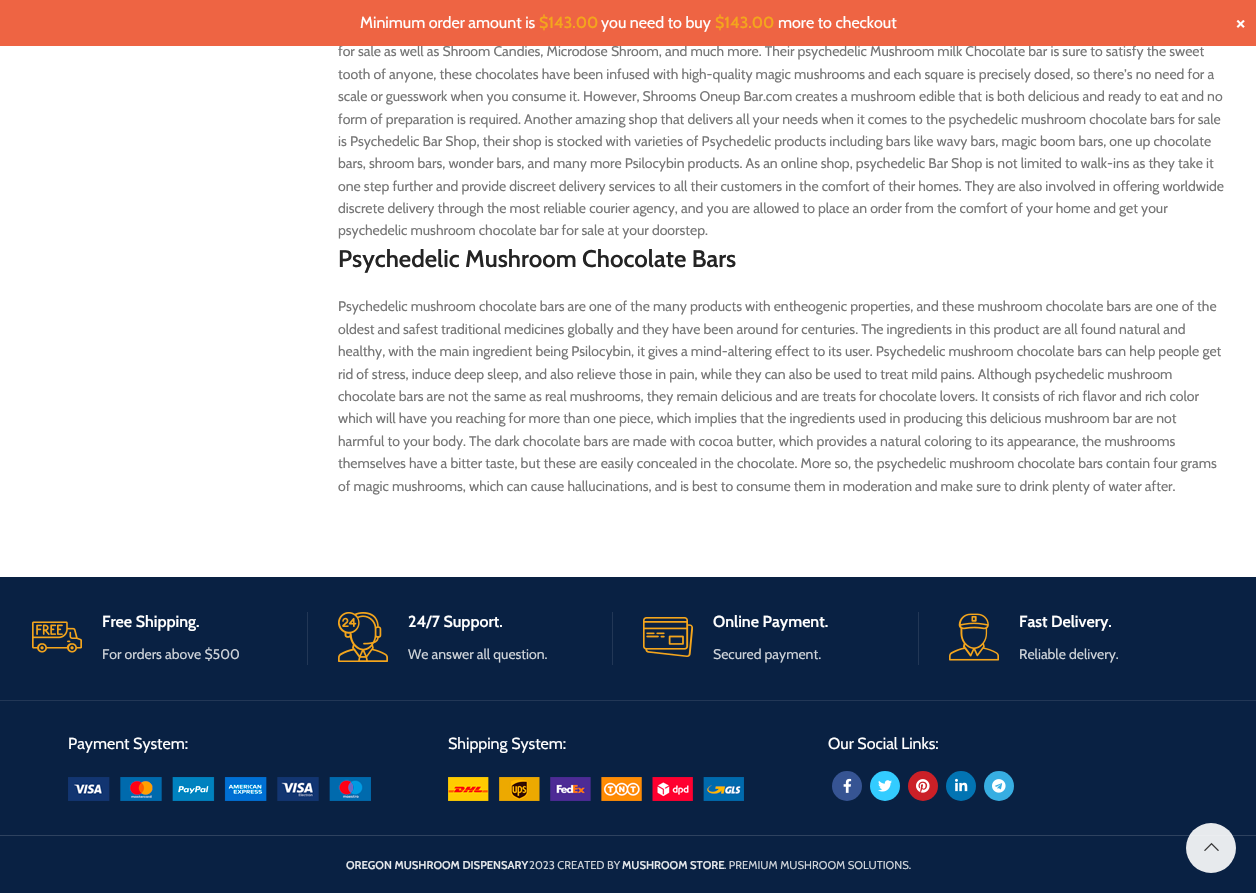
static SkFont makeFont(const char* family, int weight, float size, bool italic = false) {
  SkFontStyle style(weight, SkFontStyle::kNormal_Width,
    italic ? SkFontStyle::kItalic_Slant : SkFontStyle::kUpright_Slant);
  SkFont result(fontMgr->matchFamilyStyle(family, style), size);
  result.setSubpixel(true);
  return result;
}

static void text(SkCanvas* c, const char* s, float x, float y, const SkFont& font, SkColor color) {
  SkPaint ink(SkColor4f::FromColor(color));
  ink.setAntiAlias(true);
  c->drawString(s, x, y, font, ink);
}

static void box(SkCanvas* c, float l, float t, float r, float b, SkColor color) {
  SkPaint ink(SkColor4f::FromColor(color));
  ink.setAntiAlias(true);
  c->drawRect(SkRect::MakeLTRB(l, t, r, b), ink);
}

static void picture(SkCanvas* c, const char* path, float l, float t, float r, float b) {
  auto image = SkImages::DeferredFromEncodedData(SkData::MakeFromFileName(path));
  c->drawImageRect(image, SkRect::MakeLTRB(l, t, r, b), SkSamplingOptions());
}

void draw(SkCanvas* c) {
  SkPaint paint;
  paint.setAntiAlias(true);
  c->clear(0xffffffff);
  SkFont face1 = makeFont("Cabin", 400, 14);
  text(c, "for sale as well as Shroom Candies, Microdose Shroom, and much more. Their psychedelic Mushroom milk Chocolate bar is sure to satisfy the sweet", 338, 56, face1, 0xff777777);
  box(c, 0, 0, 1256, 46, 0xffee6443);
  SkFont face2 = makeFont("Cabin", 400, 16);
  text(c, "Minimum order amount is", 360, 28, face2, 0xffffffff);
  SkFont face3 = makeFont("Cabin", 600, 16);
  text(c, "$143.00", 539, 28, face3, 0xfff4a51c);
  text(c, "you need to buy", 601, 28, face2, 0xffffffff);
  text(c, "$143.00", 715, 28, face3, 0xfff4a51c);
  text(c, "more to checkout", 778, 28, face2, 0xffffffff);
  SkFont face4 = makeFont("Cabin", 600, 22);
  text(c, "×", 1236, 30, face4, 0xffffffff);
  text(c, "tooth of anyone, these chocolates have been infused with high-quality magic mushrooms and each square is precisely dosed, so there’s no need for a", 338, 79, face1, 0xff777777);
  text(c, "scale or guesswork when you consume it. However, Shrooms Oneup Bar.com creates a mushroom edible that is both delicious and ready to eat and no", 338, 101, face1, 0xff777777);
  text(c, "form of preparation is required. Another amazing shop that delivers all your needs when it comes to the psychedelic mushroom chocolate bars for sale", 338, 124, face1, 0xff777777);
  text(c, "is Psychedelic Bar Shop, their shop is stocked with varieties of Psychedelic products including bars like wavy bars, magic boom bars, one up chocolate", 338, 146, face1, 0xff777777);
  text(c, "bars, shroom bars, wonder bars, and many more Psilocybin products. As an online shop, psychedelic Bar Shop is not limited to walk-ins as they take it", 338, 168, face1, 0xff777777);
  text(c, "one step further and provide discreet delivery services to all their customers in the comfort of their homes. They are also involved in offering worldwide", 338, 191, face1, 0xff777777);
  text(c, "discrete delivery through the most reliable courier agency, and you are allowed to place an order from the comfort of your home and get your", 338, 213, face1, 0xff777777);
  text(c, "psychedelic mushroom chocolate bar for sale at your doorstep.", 338, 235, face1, 0xff777777);
  SkFont face5 = makeFont("Cabin", 600, 24);
  text(c, "Psychedelic Mushroom Chocolate Bars", 338, 267, face5, 0xff242424);
  text(c, "Psychedelic mushroom chocolate bars are one of the many products with entheogenic properties, and these mushroom chocolate bars are one of the", 338, 311, face1, 0xff777777);
  text(c, "oldest and safest traditional medicines globally and they have been around for centuries. The ingredients in this product are all found natural and", 338, 334, face1, 0xff777777);
  text(c, "healthy, with the main ingredient being Psilocybin, it gives a mind-altering effect to its user. Psychedelic mushroom chocolate bars can help people get", 338, 356, face1, 0xff777777);
  text(c, "rid of stress, induce deep sleep, and also relieve those in pain, while they can also be used to treat mild pains. Although psychedelic mushroom", 338, 379, face1, 0xff777777);
  text(c, "chocolate bars are not the same as real mushrooms, they remain delicious and are treats for chocolate lovers. It consists of rich flavor and rich color", 338, 401, face1, 0xff777777);
  text(c, "which will have you reaching for more than one piece, which implies that the ingredients used in producing this delicious mushroom bar are not", 338, 423, face1, 0xff777777);
  text(c, "harmful to your body. The dark chocolate bars are made with cocoa butter, which provides a natural coloring to its appearance, the mushrooms", 338, 446, face1, 0xff777777);
  text(c, "themselves have a bitter taste, but these are easily concealed in the chocolate. More so, the psychedelic mushroom chocolate bars contain four grams", 338, 468, face1, 0xff777777);
  text(c, "of magic mushrooms, which can cause hallucinations, and is best to consume them in moderation and make sure to drink plenty of water after.", 338, 491, face1, 0xff777777);
  box(c, 0, 577, 1256, 893, 0xff092143);
  box(c, 0, 700, 1256, 701, 0xff223756);
  box(c, 307, 612, 308, 665, 0xff223756);
  picture(c, "img_01.png", 32, 621, 82, 653);
  text(c, "Free Shipping.", 102, 627, face3, 0xffffffff);
  text(c, "For orders above $500", 102, 659, face1, 0xffced3d9);
  box(c, 612, 612, 613, 665, 0xff223756);
  picture(c, "img_02.png", 338, 612, 388, 662);
  text(c, "24/7 Support.", 408, 627, face3, 0xffffffff);
  text(c, "We answer all question.", 408, 659, face1, 0xffced3d9);
  box(c, 918, 612, 919, 665, 0xff223756);
  picture(c, "img_03.png", 643, 617, 693, 657);
  text(c, "Online Payment.", 713, 627, face3, 0xffffffff);
  text(c, "Secured payment.", 713, 659, face1, 0xffced3d9);
  picture(c, "img_04.png", 949, 613, 999, 661);
  text(c, "Fast Delivery.", 1019, 627, face3, 0xffffffff);
  text(c, "Reliable delivery.", 1019, 659, face1, 0xffced3d9);
  text(c, "Payment System:", 68, 749, face2, 0xffffffff);
  picture(c, "img_05.png", 68, 777, 371, 801);
  text(c, "Shipping System:", 448, 749, face2, 0xffffffff);
  picture(c, "img_06.png", 448, 777, 744, 801);
  text(c, "Our Social Links:", 828, 749, face2, 0xffffffff);
  paint.setColor(0xff365493);
  c->drawCircle(847, 786, 15, paint);
  picture(c, "img_07.png", 843, 778, 852, 793);
  paint.setColor(0xff33ccff);
  c->drawCircle(885, 786, 15, paint);
  picture(c, "img_08.png", 878, 780, 892, 792);
  paint.setColor(0xffcb2027);
  c->drawCircle(923, 786, 15, paint);
  picture(c, "img_09.png", 916, 779, 930, 793);
  paint.setColor(0xff0274b3);
  c->drawCircle(961, 786, 15, paint);
  picture(c, "img_10.png", 955, 778, 968, 792);
  paint.setColor(0xff37aee2);
  c->drawCircle(999, 786, 15, paint);
  picture(c, "img_11.png", 992, 779, 1006, 793);
  box(c, 0, 835, 1256, 836, 0xff2e425f);
  SkFont face6 = makeFont("Cabin", 600, 11.25f);
  text(c, "OREGON MUSHROOM DISPENSARY", 346, 869, face6, 0xffe6e9ec);
  SkFont face7 = makeFont("Cabin", 400, 11.25f);
  text(c, "2023 CREATED BY", 529, 869, face7, 0xffced3d9);
  text(c, "MUSHROOM STORE", 622, 869, face6, 0xffe6e9ec);
  text(c, ". PREMIUM MUSHROOM SOLUTIONS.", 724, 869, face7, 0xffced3d9);
  paint.setColor(0xe6ffffff);
  c->drawCircle(1211, 848, 25, paint);
  picture(c, "img_12.png", 1204, 842, 1219, 851);
}
